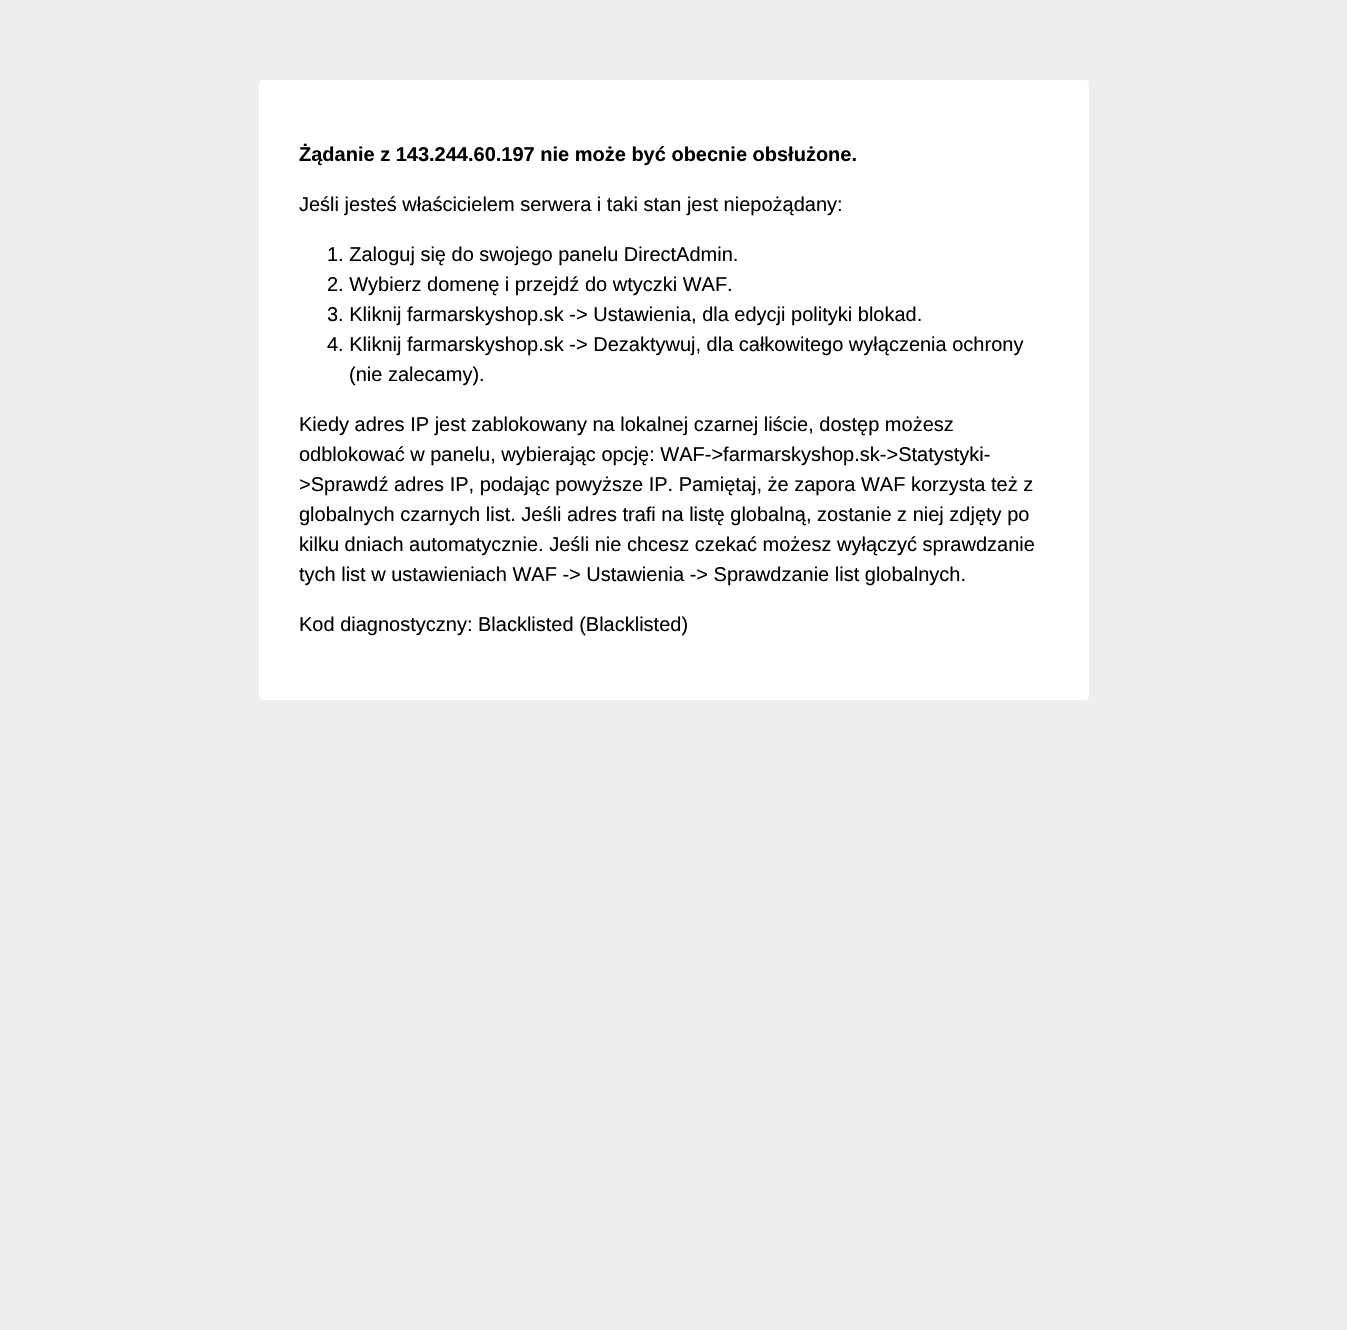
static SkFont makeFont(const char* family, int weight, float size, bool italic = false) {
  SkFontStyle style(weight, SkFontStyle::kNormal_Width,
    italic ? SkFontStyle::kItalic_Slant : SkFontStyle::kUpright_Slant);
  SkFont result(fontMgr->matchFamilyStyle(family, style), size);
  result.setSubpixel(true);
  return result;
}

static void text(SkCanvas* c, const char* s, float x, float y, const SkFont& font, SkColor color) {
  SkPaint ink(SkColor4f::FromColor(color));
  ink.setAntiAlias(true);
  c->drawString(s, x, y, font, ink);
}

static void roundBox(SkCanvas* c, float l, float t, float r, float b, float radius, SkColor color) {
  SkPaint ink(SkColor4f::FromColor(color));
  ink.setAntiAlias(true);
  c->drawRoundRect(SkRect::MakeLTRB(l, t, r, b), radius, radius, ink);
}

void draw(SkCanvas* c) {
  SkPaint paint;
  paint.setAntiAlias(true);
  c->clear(0xffeeeeee);
  roundBox(c, 259, 80, 1089, 700, 4, 0xffffffff);
  SkFont face1 = makeFont("Liberation Sans", 700, 20);
  text(c, "Żądanie z 143.244.60.197 nie może być obecnie obsłużone.", 299, 161, face1, 0xff000000);
  SkFont face2 = makeFont("Liberation Sans", 400, 20);
  text(c, "Jeśli jesteś właścicielem serwera i taki stan jest niepożądany:", 299, 211, face2, 0xff000000);
  text(c, "1. Zaloguj się do swojego panelu DirectAdmin.", 327, 261, face2, 0xff000000);
  text(c, "2. Wybierz domenę i przejdź do wtyczki WAF.", 327, 291, face2, 0xff000000);
  text(c, "3. Kliknij farmarskyshop.sk -> Ustawienia, dla edycji polityki blokad.", 327, 321, face2, 0xff000000);
  text(c, "4. Kliknij farmarskyshop.sk -> Dezaktywuj, dla całkowitego wyłączenia ochrony", 327, 351, face2, 0xff000000);
  text(c, "(nie zalecamy).", 349, 381, face2, 0xff000000);
  text(c, "Kiedy adres IP jest zablokowany na lokalnej czarnej liście, dostęp możesz", 299, 431, face2, 0xff000000);
  text(c, "odblokować w panelu, wybierając opcję: WAF->farmarskyshop.sk->Statystyki-", 299, 461, face2, 0xff000000);
  text(c, ">Sprawdź adres IP, podając powyższe IP. Pamiętaj, że zapora WAF korzysta też z", 299, 491, face2, 0xff000000);
  text(c, "globalnych czarnych list. Jeśli adres trafi na listę globalną, zostanie z niej zdjęty po", 299, 521, face2, 0xff000000);
  text(c, "kilku dniach automatycznie. Jeśli nie chcesz czekać możesz wyłączyć sprawdzanie", 299, 551, face2, 0xff000000);
  text(c, "tych list w ustawieniach WAF -> Ustawienia -> Sprawdzanie list globalnych.", 299, 581, face2, 0xff000000);
  text(c, "Kod diagnostyczny: Blacklisted (Blacklisted)", 299, 631, face2, 0xff000000);
}
